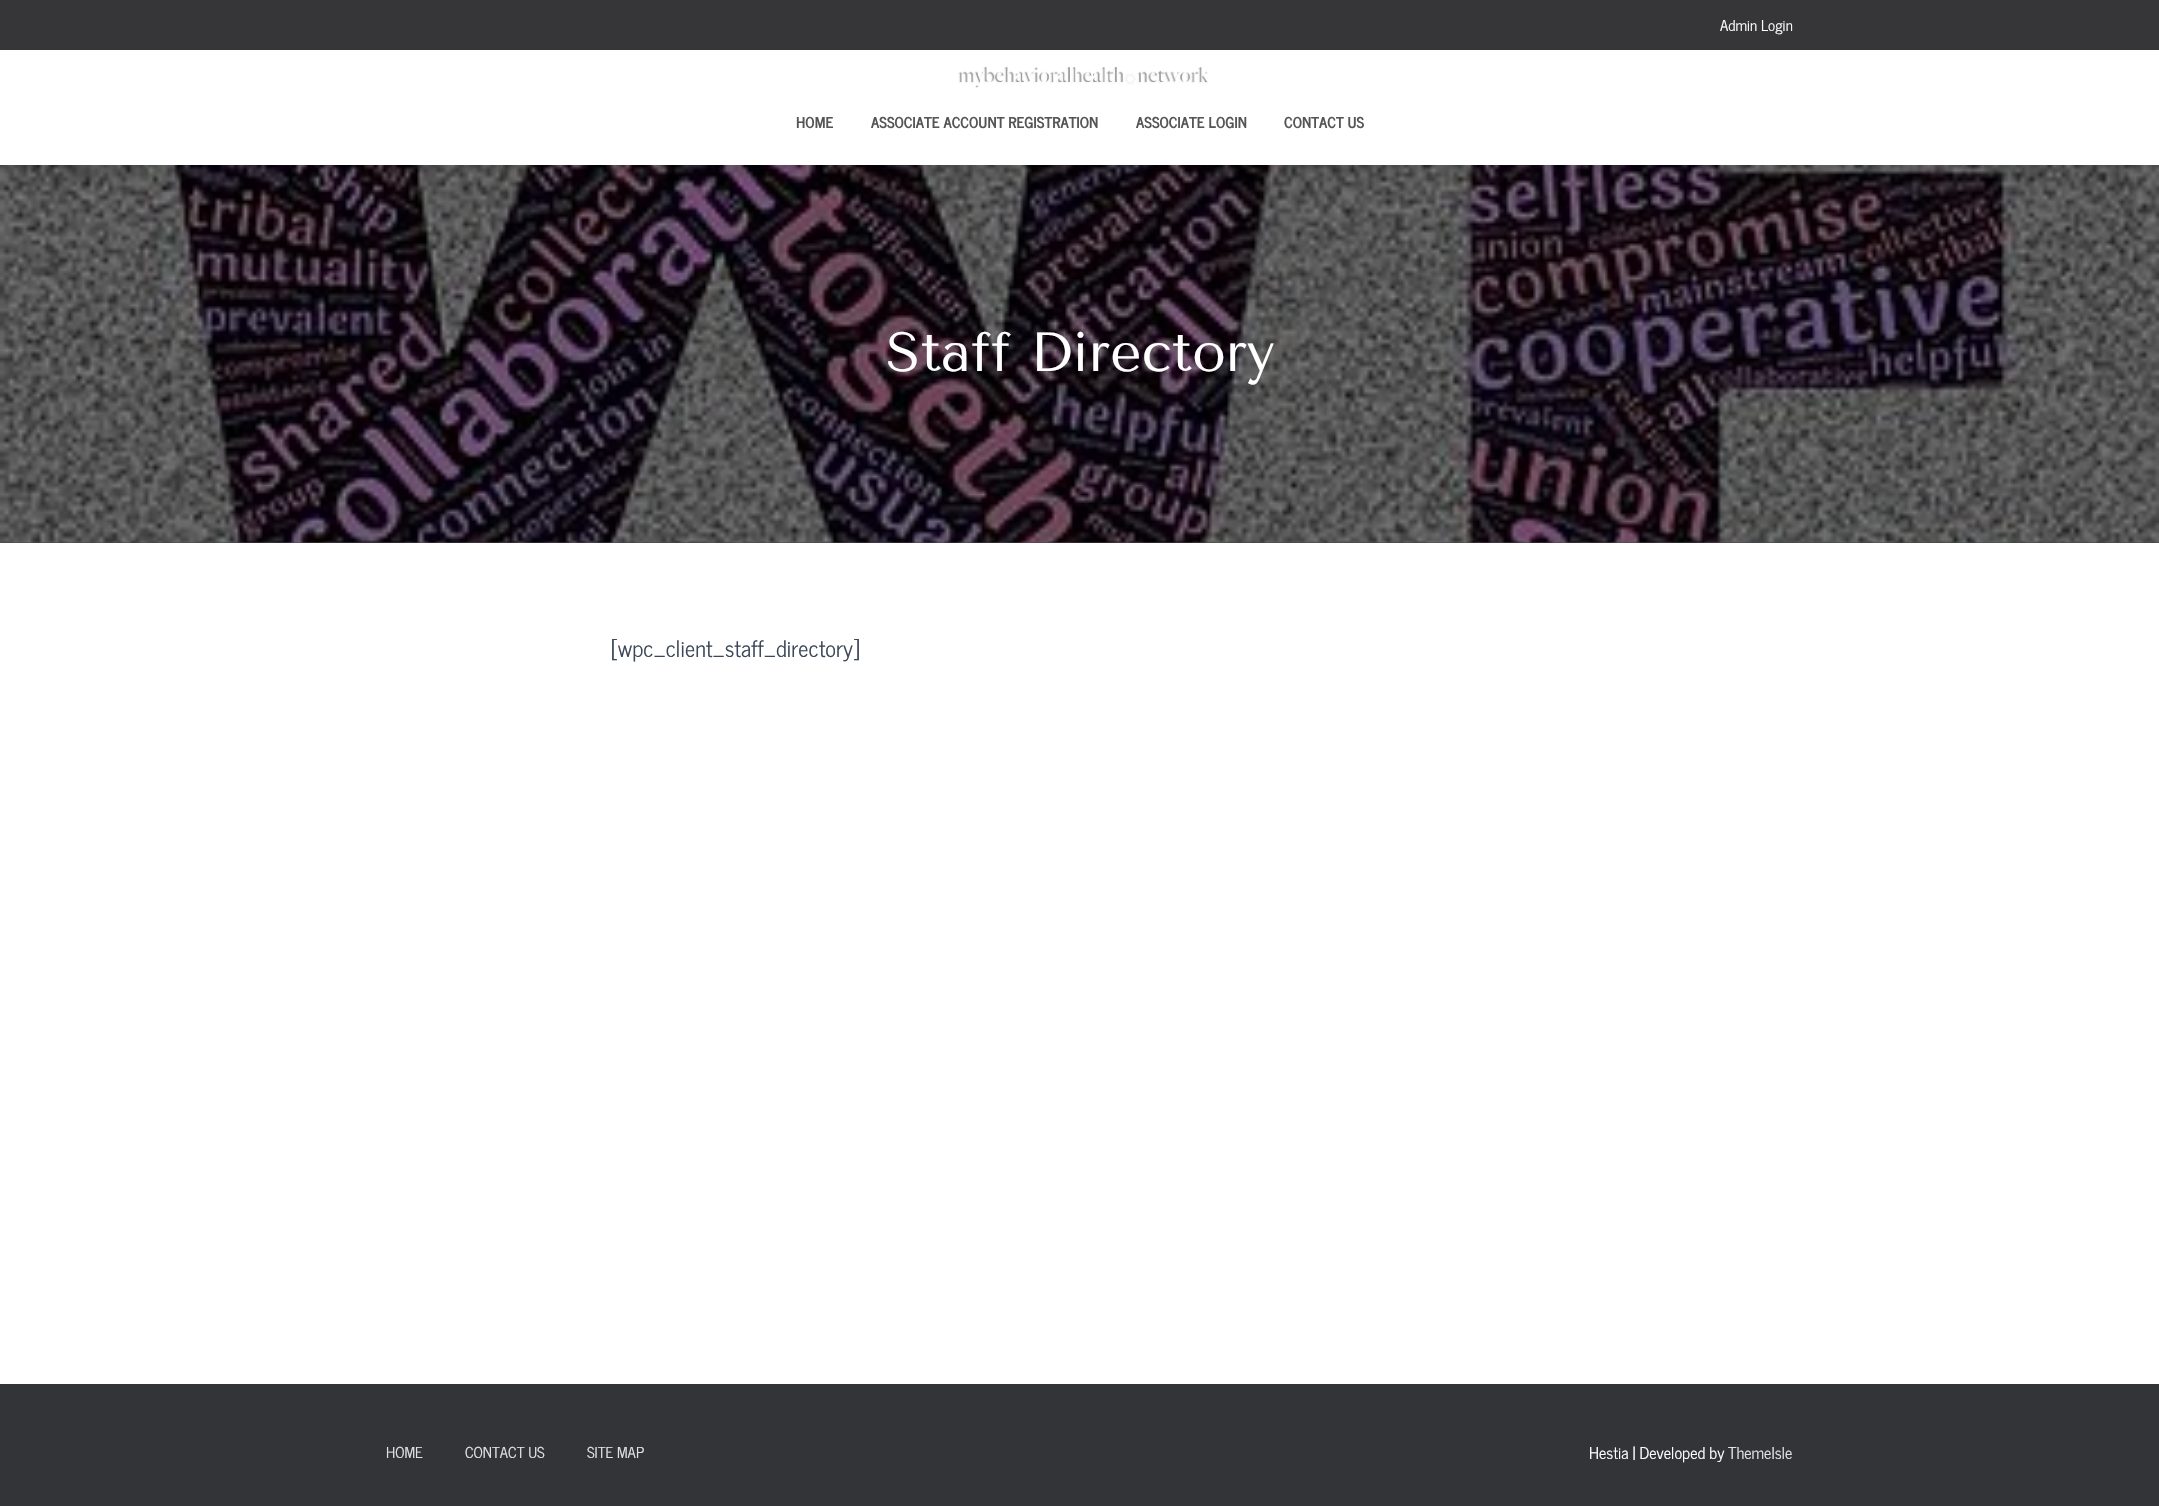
static SkFont makeFont(const char* family, int weight, float size, bool italic = false) {
  SkFontStyle style(weight, SkFontStyle::kNormal_Width,
    italic ? SkFontStyle::kItalic_Slant : SkFontStyle::kUpright_Slant);
  SkFont result(fontMgr->matchFamilyStyle(family, style), size);
  result.setSubpixel(true);
  return result;
}

static void text(SkCanvas* c, const char* s, float x, float y, const SkFont& font, SkColor color) {
  SkPaint ink(SkColor4f::FromColor(color));
  ink.setAntiAlias(true);
  c->drawString(s, x, y, font, ink);
}

static void box(SkCanvas* c, float l, float t, float r, float b, SkColor color) {
  SkPaint ink(SkColor4f::FromColor(color));
  ink.setAntiAlias(true);
  c->drawRect(SkRect::MakeLTRB(l, t, r, b), ink);
}

static void picture(SkCanvas* c, const char* path, float l, float t, float r, float b) {
  auto image = SkImages::DeferredFromEncodedData(SkData::MakeFromFileName(path));
  c->drawImageRect(image, SkRect::MakeLTRB(l, t, r, b), SkSamplingOptions());
}

void draw(SkCanvas* c) {
  SkPaint paint;
  paint.setAntiAlias(true);
  c->clear(0xff454849);
  box(c, 0, 0, 2159, 50, 0xff363537);
  SkFont face1 = makeFont("News Cycle", 400, 15);
  text(c, "Admin Login", 1720, 31, face1, 0xffffffff);
  picture(c, "img_02.png", 0, 165, 2159, 543);
  paint.setColor(0x26000000);
  paint.setMaskFilter(SkMaskFilter::MakeBlur(kNormal_SkBlurStyle, 6));
  c->drawRect(SkRect::MakeLTRB(5, 63, 2155, 168), paint);
  paint.setMaskFilter(nullptr);
  box(c, 0, 50, 2159, 165, 0xffffffff);
  picture(c, "img_01.png", 958, 66, 1208, 88);
  SkFont face2 = makeFont("News Cycle", 700, 15);
  text(c, "HOME", 796, 128, face2, 0xff555555);
  text(c, "ASSOCIATE ACCOUNT REGISTRATION", 871, 128, face2, 0xff555555);
  text(c, "ASSOCIATE LOGIN", 1136, 128, face2, 0xff555555);
  text(c, "CONTACT US", 1284, 128, face2, 0xff555555);
  SkFont face3 = makeFont("Tenor Sans", 400, 55);
  text(c, "Staff Directory", 886, 371, face3, 0xffffffff);
  box(c, 0, 543, 2159, 1384, 0xffffffff);
  SkFont face4 = makeFont("News Cycle", 400, 22.5f);
  text(c, "[wpc_client_staff_directory]", 611, 657, face4, 0xff3c4858);
  box(c, 0, 1384, 2159, 1506, 0xff323437);
  text(c, "HOME", 386, 1458, face1, 0xffe2e3e3);
  text(c, "CONTACT US", 465, 1458, face1, 0xffe2e3e3);
  text(c, "SITE MAP", 587, 1458, face1, 0xffe2e3e3);
  SkFont face5 = makeFont("News Cycle", 400, 16.25f);
  text(c, "Hestia | Developed by", 1589, 1459, face5, 0xffffffff);
  text(c, "ThemeIsle", 1728, 1459, face5, 0xffe2e3e3);
}
